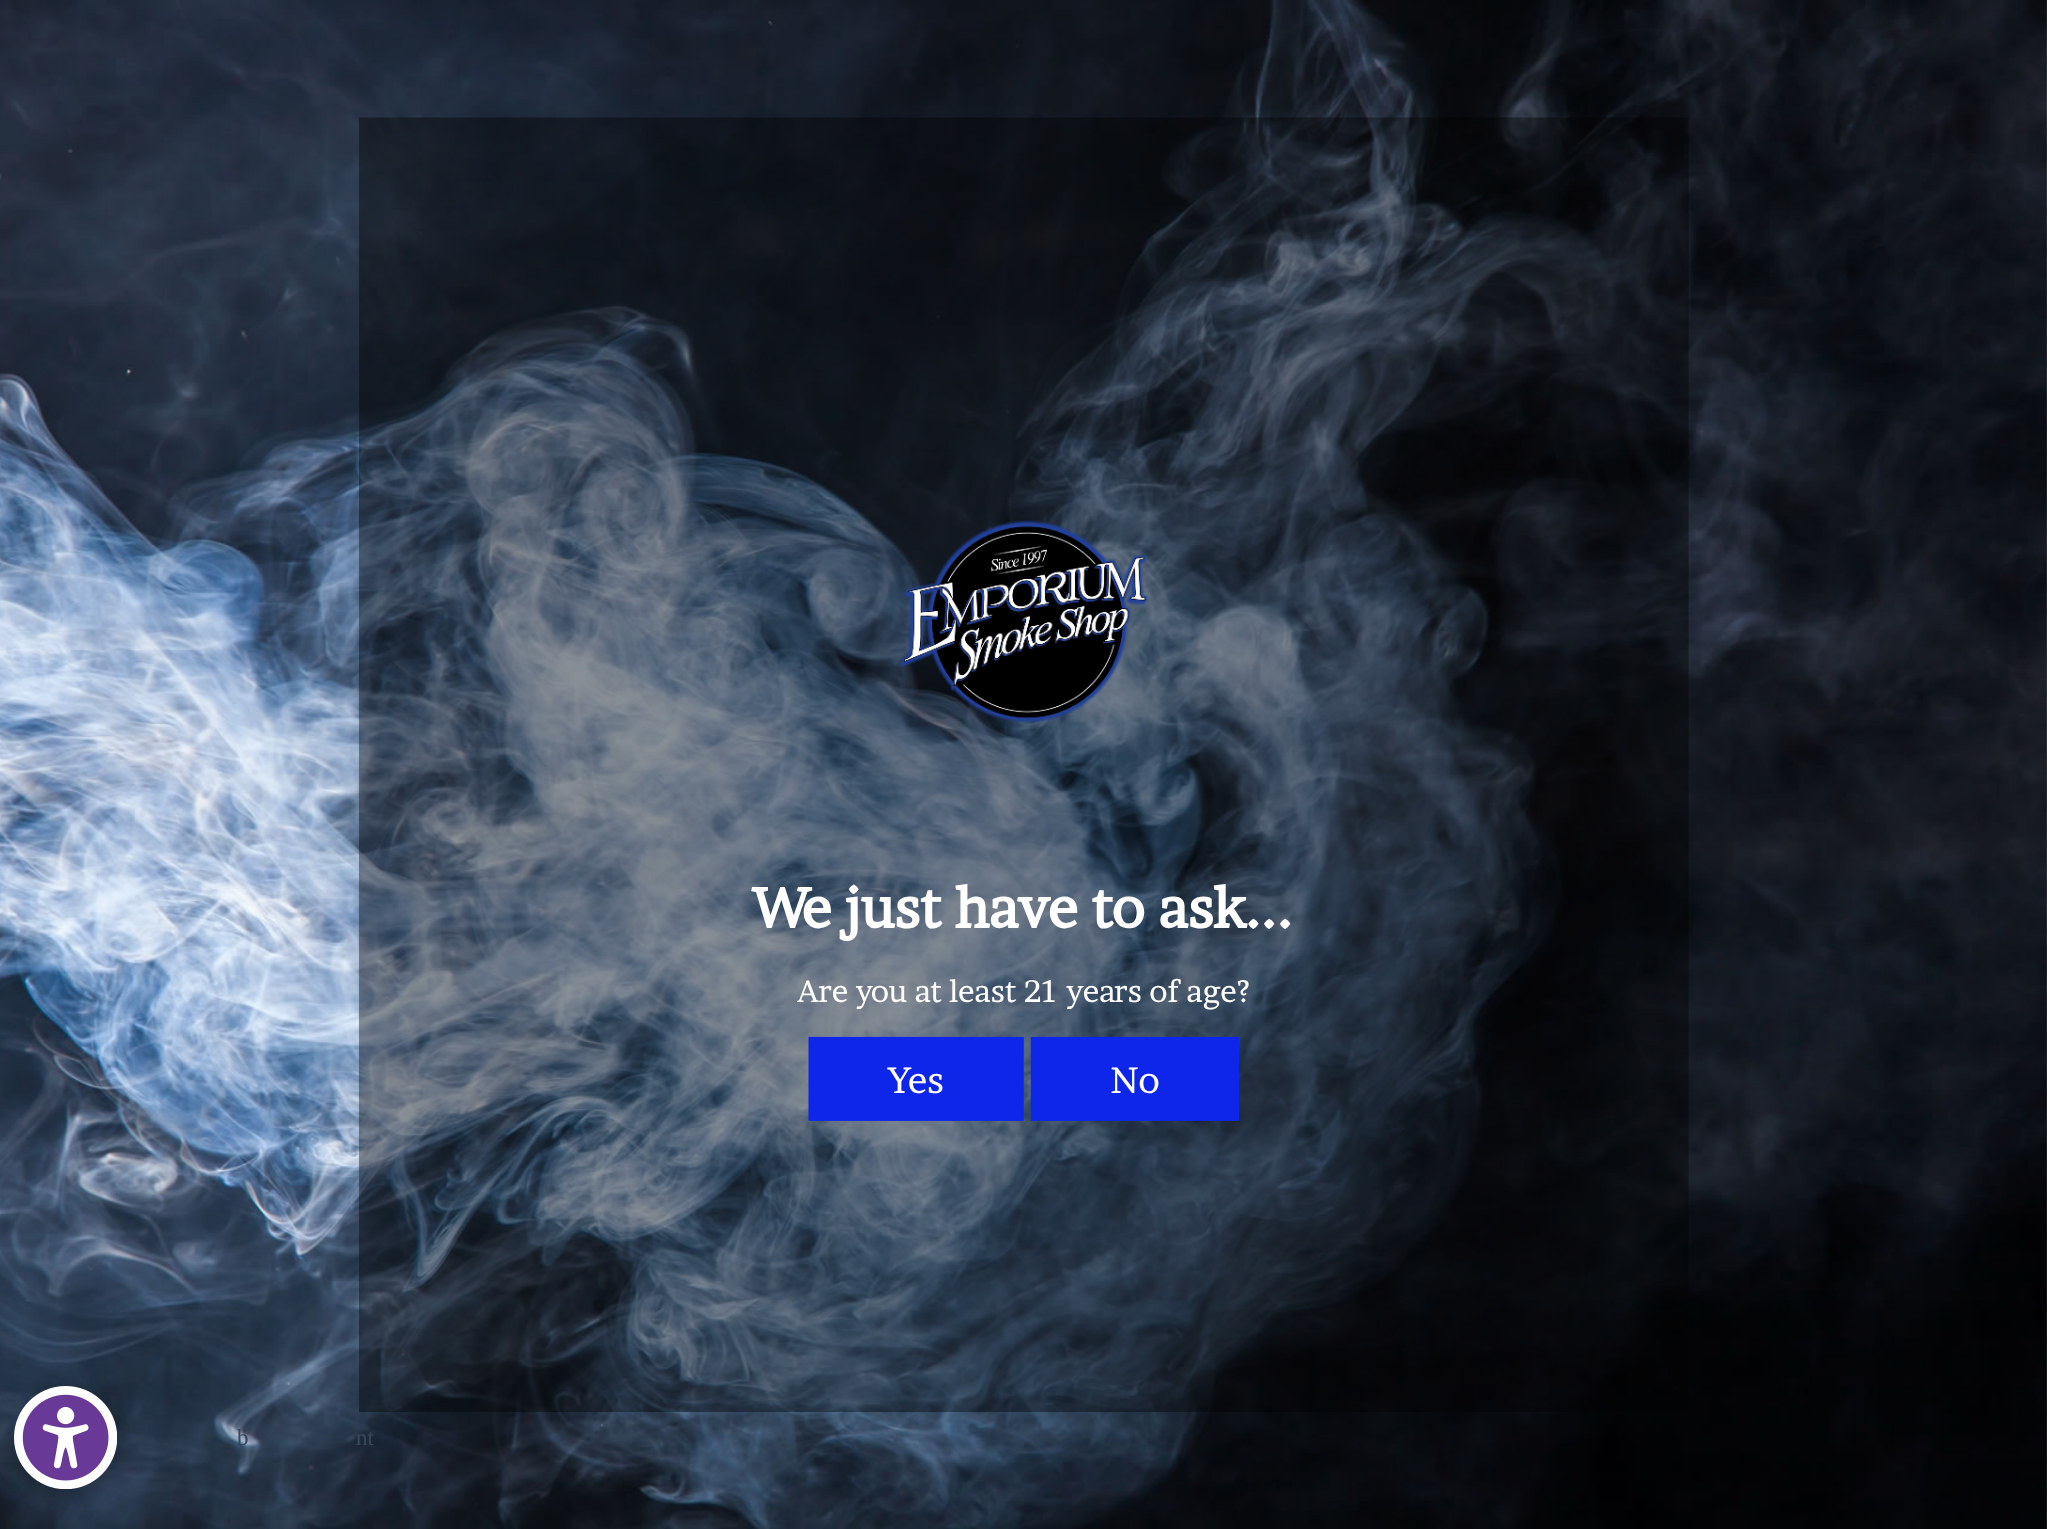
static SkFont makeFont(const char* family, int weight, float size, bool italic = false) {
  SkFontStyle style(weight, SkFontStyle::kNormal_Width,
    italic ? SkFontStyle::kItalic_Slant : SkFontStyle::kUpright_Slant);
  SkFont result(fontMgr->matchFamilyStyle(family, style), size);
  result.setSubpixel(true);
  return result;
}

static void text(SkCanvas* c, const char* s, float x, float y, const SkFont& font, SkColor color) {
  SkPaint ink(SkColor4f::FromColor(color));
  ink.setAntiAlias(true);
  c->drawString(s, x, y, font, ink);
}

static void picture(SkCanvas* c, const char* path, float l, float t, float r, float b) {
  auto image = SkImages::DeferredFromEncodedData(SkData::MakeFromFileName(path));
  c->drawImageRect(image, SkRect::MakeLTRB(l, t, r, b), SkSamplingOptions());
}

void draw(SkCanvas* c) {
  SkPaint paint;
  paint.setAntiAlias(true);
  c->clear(0xffffffff);
  picture(c, "img_01.png", 0, 0, 2047, 1529);
  picture(c, "img_02.png", 358, 117, 1689, 1412);
  paint.setColor(0x4d000000);
  paint.setMaskFilter(SkMaskFilter::MakeBlur(kNormal_SkBlurStyle, 13));
  c->drawRoundRect(SkRect::MakeLTRB(14, 1395, 117, 1498), 51.5f, 51.5f, paint);
  paint.setMaskFilter(nullptr);
  picture(c, "img_03.png", 14, 1386, 117, 1489);
  SkFont face1 = makeFont("Liberation Serif", 400, 23);
  text(c, "b", 237, 1445, face1, 0xff35465a);
  text(c, "nt", 356, 1445, face1, 0xff35465a);
}
